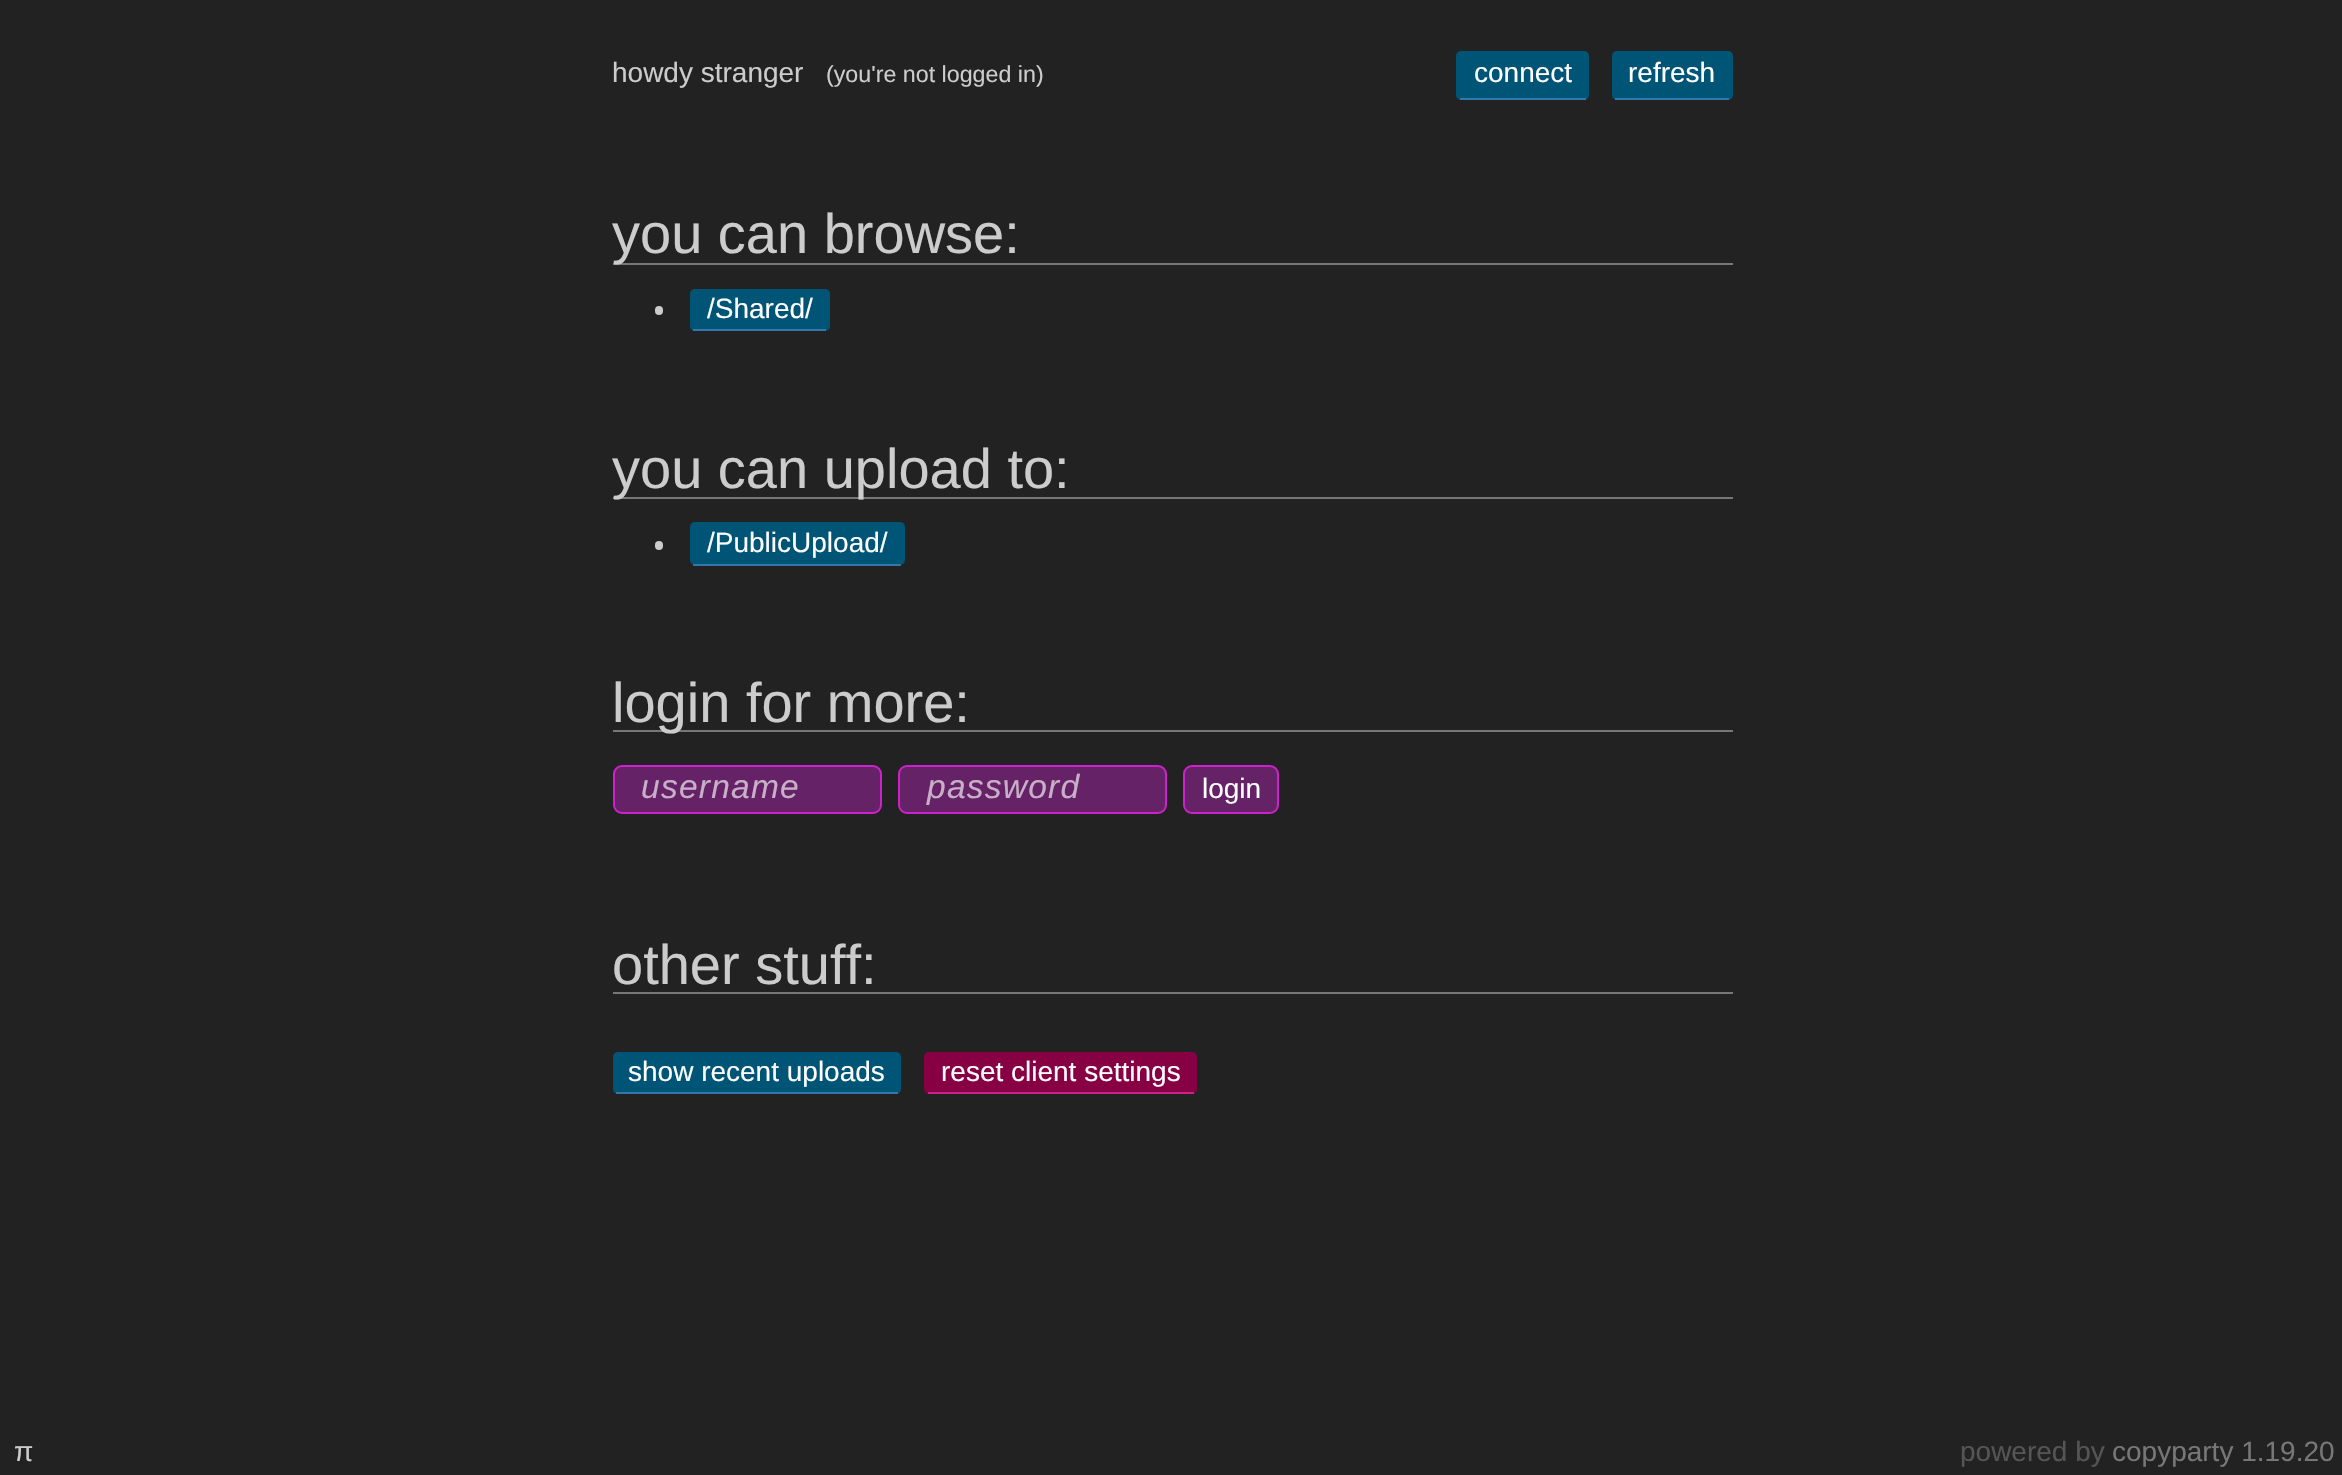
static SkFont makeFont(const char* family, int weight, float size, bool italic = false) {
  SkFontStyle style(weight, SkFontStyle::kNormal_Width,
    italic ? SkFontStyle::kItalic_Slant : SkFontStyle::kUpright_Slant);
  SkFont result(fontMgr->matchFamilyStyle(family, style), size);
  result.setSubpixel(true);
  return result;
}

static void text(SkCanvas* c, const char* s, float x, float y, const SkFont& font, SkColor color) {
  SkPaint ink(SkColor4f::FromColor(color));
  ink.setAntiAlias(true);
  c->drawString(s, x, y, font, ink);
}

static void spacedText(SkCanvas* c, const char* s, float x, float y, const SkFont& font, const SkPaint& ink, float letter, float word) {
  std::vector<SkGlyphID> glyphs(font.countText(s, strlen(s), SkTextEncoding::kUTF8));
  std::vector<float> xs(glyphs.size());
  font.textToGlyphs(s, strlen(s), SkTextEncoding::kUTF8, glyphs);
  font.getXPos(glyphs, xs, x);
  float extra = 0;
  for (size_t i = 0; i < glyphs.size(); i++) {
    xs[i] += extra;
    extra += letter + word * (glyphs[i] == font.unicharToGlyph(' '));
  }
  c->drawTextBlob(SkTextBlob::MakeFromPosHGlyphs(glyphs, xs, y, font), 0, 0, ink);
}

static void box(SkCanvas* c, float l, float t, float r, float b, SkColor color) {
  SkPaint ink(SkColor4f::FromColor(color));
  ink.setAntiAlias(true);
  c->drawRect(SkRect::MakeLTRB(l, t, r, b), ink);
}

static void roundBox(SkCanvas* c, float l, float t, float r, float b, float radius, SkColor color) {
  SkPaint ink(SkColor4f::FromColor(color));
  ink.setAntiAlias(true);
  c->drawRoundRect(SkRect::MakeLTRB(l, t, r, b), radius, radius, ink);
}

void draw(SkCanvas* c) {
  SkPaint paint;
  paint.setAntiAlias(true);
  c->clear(0xff222222);
  SkFont face1 = makeFont("Liberation Sans", 400, 28);
  text(c, "howdy stranger", 612, 82, face1, 0xffcccccc);
  SkFont face2 = makeFont("Liberation Sans", 400, 23.25f);
  text(c, "(you're not logged in)", 826, 82, face2, 0xffcccccc);
  roundBox(c, 1456, 51, 1589, 100, 5, 0xff005577);
  box(c, 1460, 98, 1586, 100, 0xff3377aa);
  text(c, "connect", 1474, 82, face1, 0xffffffff);
  roundBox(c, 1612, 51, 1733, 100, 5, 0xff005577);
  box(c, 1615, 98, 1729, 100, 0xff3377aa);
  text(c, "refresh", 1628, 82, face1, 0xffffffff);
  box(c, 613, 263, 1733, 265, 0xff777777);
  SkFont face3 = makeFont("Liberation Sans", 400, 56);
  text(c, "you can browse:", 612, 253, face3, 0xffcccccc);
  roundBox(c, 655, 306, 663, 315, 4, 0xffcccccc);
  roundBox(c, 690, 289, 830, 331, 5, 0xff005577);
  text(c, "/Shared/", 707, 318, face1, 0xffffffff);
  box(c, 693, 329, 826, 331, 0xff3377aa);
  box(c, 613, 497, 1733, 499, 0xff777777);
  text(c, "you can upload to:", 612, 488, face3, 0xffcccccc);
  roundBox(c, 655, 541, 663, 550, 4, 0xffcccccc);
  roundBox(c, 690, 522, 905, 565, 5, 0xff005577);
  text(c, "/PublicUpload/", 707, 552, face1, 0xffffffff);
  box(c, 693, 564, 901, 566, 0xff3377aa);
  box(c, 613, 730, 1733, 732, 0xff777777);
  text(c, "login for more:", 612, 722, face3, 0xffcccccc);
  paint.setColor(0xff662266);
  c->drawRoundRect(SkRect::MakeLTRB(614, 766, 881, 813), 8, 8, paint);
  paint.setStyle(SkPaint::kStroke_Style);
  paint.setStrokeWidth(2);
  paint.setColor(0xffcc22cc);
  c->drawRoundRect(SkRect::MakeLTRB(614, 766, 881, 813), 8, 8, paint);
  SkFont face4 = makeFont("Liberation Sans", 400, 33.5f, true);
  paint.setStyle(SkPaint::kFill_Style);
  paint.setColor(0xffc8afc8);
  spacedText(c, "username", 641, 798, face4, paint, 1.25f, 0);
  paint.setColor(0xff662266);
  c->drawRoundRect(SkRect::MakeLTRB(899, 766, 1166, 813), 8, 8, paint);
  paint.setStyle(SkPaint::kStroke_Style);
  paint.setColor(0xffcc22cc);
  c->drawRoundRect(SkRect::MakeLTRB(899, 766, 1166, 813), 8, 8, paint);
  paint.setStyle(SkPaint::kFill_Style);
  paint.setColor(0xffc8afc8);
  spacedText(c, "password", 927, 798, face4, paint, 1.25f, 0);
  paint.setColor(0xff662266);
  c->drawRoundRect(SkRect::MakeLTRB(1184, 766, 1278, 813), 8, 8, paint);
  paint.setStyle(SkPaint::kStroke_Style);
  paint.setColor(0xffcc22cc);
  c->drawRoundRect(SkRect::MakeLTRB(1184, 766, 1278, 813), 8, 8, paint);
  text(c, "login", 1202, 798, face1, 0xffffffff);
  box(c, 613, 992, 1733, 994, 0xff777777);
  text(c, "other stuff:", 612, 984, face3, 0xffcccccc);
  roundBox(c, 613, 1052, 901, 1094, 5, 0xff005577);
  text(c, "show recent uploads", 628, 1081, face1, 0xffffffff);
  box(c, 616, 1092, 898, 1094, 0xff3377aa);
  roundBox(c, 924, 1052, 1197, 1094, 5, 0xff880044);
  text(c, "reset client settings", 941, 1081, face1, 0xffffffff);
  box(c, 928, 1092, 1194, 1094, 0xffcc2288);
  text(c, "π", 14, 1461, face1, 0xffcccccc);
  text(c, "powered by", 1960, 1461, face1, 0xff555555);
  text(c, "copyparty 1.19.20", 2112, 1461, face1, 0xff777777);
}
